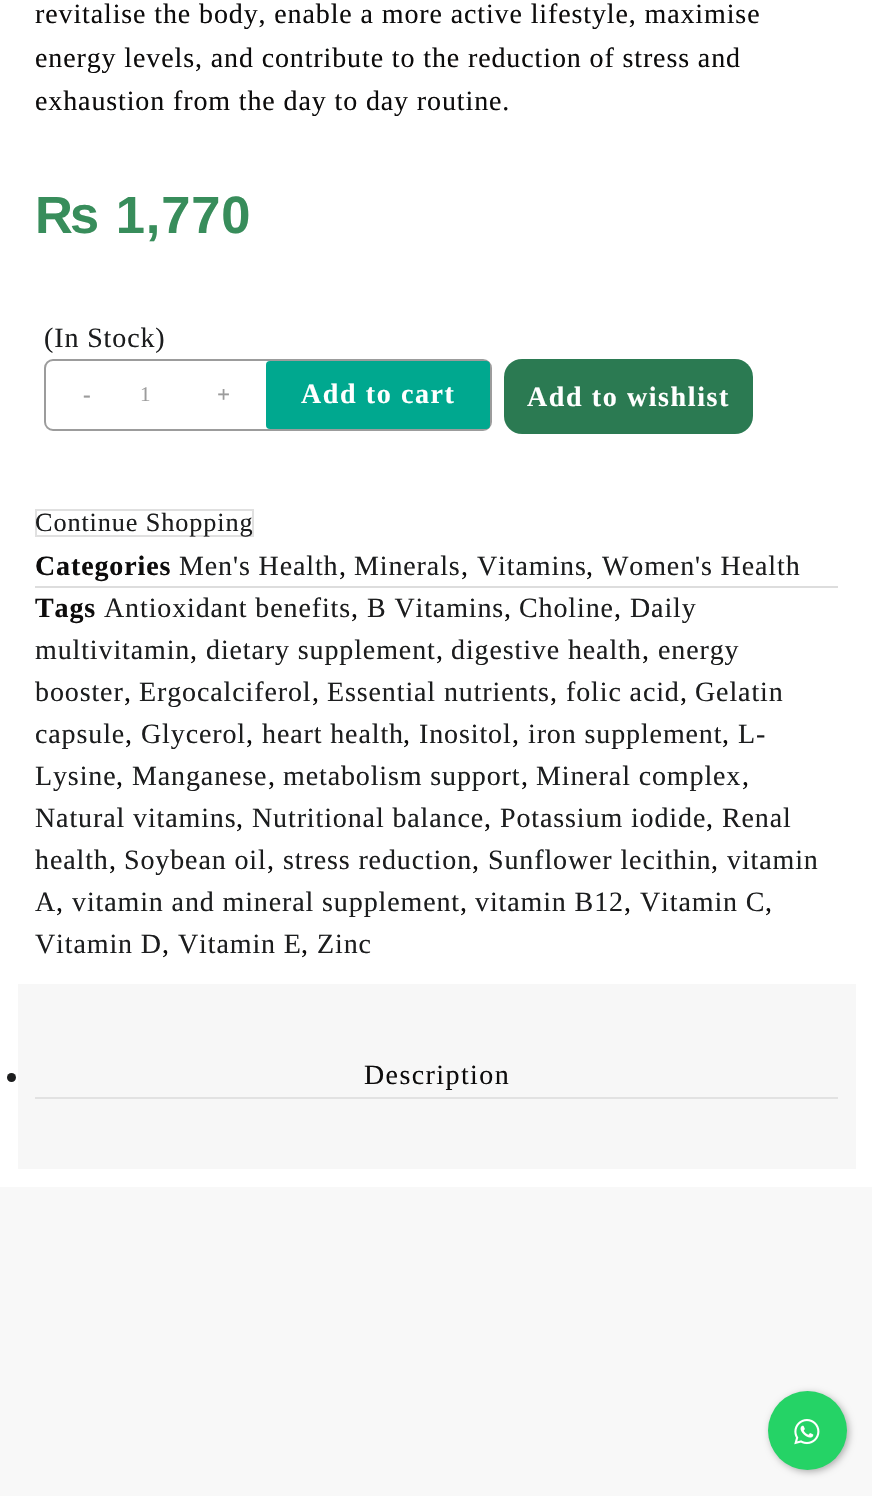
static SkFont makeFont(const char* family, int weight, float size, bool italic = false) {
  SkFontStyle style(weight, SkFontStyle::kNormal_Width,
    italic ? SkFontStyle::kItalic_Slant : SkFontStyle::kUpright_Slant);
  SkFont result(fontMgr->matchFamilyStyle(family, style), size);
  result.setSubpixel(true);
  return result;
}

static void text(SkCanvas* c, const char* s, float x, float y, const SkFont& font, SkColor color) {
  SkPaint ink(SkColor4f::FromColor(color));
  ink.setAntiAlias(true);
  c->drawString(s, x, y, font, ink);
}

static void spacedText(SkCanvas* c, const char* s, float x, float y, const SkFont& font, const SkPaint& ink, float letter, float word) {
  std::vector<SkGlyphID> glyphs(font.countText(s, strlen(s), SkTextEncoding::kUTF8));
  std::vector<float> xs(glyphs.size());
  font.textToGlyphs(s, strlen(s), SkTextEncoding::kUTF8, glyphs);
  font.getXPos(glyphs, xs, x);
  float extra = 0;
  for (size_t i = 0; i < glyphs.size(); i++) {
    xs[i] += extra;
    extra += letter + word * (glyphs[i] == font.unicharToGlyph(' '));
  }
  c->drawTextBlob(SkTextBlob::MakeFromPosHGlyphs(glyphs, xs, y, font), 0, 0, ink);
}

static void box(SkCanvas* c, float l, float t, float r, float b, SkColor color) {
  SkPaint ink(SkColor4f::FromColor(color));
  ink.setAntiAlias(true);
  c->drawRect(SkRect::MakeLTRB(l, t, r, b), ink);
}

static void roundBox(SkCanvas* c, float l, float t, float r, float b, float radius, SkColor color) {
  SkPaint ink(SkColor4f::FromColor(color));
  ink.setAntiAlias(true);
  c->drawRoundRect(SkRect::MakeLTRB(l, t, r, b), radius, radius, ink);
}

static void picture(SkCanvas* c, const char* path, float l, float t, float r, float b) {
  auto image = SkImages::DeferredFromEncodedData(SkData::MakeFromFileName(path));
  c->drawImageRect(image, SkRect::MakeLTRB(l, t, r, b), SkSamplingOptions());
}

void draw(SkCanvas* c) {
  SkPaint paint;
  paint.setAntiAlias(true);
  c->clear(0xffffffff);
  SkFont face1 = makeFont("Liberation Serif", 400, 28);
  paint.setColor(0xff0d0c0c);
  spacedText(c, "revitalise the body, enable a more active lifestyle, maximise", 35, 23, face1, paint, 0.88f, 0);
  spacedText(c, "energy levels, and contribute to the reduction of stress and", 35, 67, face1, paint, 0.88f, 0);
  spacedText(c, "exhaustion from the day to day routine.", 35, 110, face1, paint, 0.88f, 0);
  SkFont face2 = makeFont("Liberation Sans", 700, 52.5f);
  paint.setColor(0xff388d5b);
  spacedText(c, "₨ 1,770", 35, 233, face2, paint, 0.88f, 0);
  paint.setColor(0xff1c1d1e);
  spacedText(c, "(In Stock)", 44, 347, face1, paint, 0.88f, 0);
  paint.setStyle(SkPaint::kStroke_Style);
  paint.setStrokeWidth(2);
  paint.setColor(0xff9c9c9c);
  c->drawRoundRect(SkRect::MakeLTRB(45, 360, 491, 430), 8, 8, paint);
  SkFont face3 = makeFont("Liberation Serif", 700, 23);
  paint.setStyle(SkPaint::kFill_Style);
  spacedText(c, "-", 83, 402, face3, paint, 1.6f, 0);
  SkFont face4 = makeFont("Liberation Serif", 400, 21);
  text(c, "1", 140, 401, face4, 0xff9c9c9c);
  spacedText(c, "+", 217, 402, face3, paint, 1.6f, 0);
  roundBox(c, 266, 361, 490, 429, 4, 0xff00a88f);
  SkFont face5 = makeFont("Liberation Serif", 700, 28);
  paint.setColor(0xffffffff);
  spacedText(c, "Add to cart", 301, 403, face5, paint, 1.6f, 0);
  roundBox(c, 504, 359, 753, 434, 18, 0xff2b7a52);
  spacedText(c, "Add to wishlist", 527, 406, face5, paint, 1.6f, 0);
  paint.setStyle(SkPaint::kStroke_Style);
  paint.setColor(0xffe0e0e0);
  c->drawRect(SkRect::MakeLTRB(36, 510, 253, 536), paint);
  SkFont face6 = makeFont("Liberation Serif", 400, 26.25f);
  paint.setStyle(SkPaint::kFill_Style);
  paint.setColor(0xff1c1d1e);
  spacedText(c, "Continue Shopping", 35, 531, face6, paint, 0.88f, 0);
  paint.setColor(0xff0d0c0c);
  spacedText(c, "Categories", 35, 575, face5, paint, 0.88f, 0);
  paint.setColor(0xff1c1d1e);
  spacedText(c, "Men's Health", 179, 575, face1, paint, 0.88f, 0);
  paint.setColor(0xff0d0c0c);
  spacedText(c, ",", 339, 575, face1, paint, 0.88f, 0);
  paint.setColor(0xff1c1d1e);
  spacedText(c, "Minerals", 354, 575, face1, paint, 0.88f, 0);
  paint.setColor(0xff0d0c0c);
  spacedText(c, ",", 461, 575, face1, paint, 0.88f, 0);
  paint.setColor(0xff1c1d1e);
  spacedText(c, "Vitamins", 477, 575, face1, paint, 0.88f, 0);
  paint.setColor(0xff0d0c0c);
  spacedText(c, ",", 586, 575, face1, paint, 0.88f, 0);
  paint.setColor(0xff1c1d1e);
  spacedText(c, "Women's Health", 602, 575, face1, paint, 0.88f, 0);
  box(c, 35, 586, 838, 588, 0xffdddddd);
  paint.setColor(0xff0d0c0c);
  spacedText(c, "Tags", 35, 617, face5, paint, 0.88f, 0);
  paint.setColor(0xff1c1d1e);
  spacedText(c, "Antioxidant benefits", 104, 617, face1, paint, 0.88f, 0);
  paint.setColor(0xff0d0c0c);
  spacedText(c, ",", 351, 617, face1, paint, 0.88f, 0);
  paint.setColor(0xff1c1d1e);
  spacedText(c, "B Vitamins", 367, 617, face1, paint, 0.88f, 0);
  paint.setColor(0xff0d0c0c);
  spacedText(c, ",", 504, 617, face1, paint, 0.88f, 0);
  paint.setColor(0xff1c1d1e);
  spacedText(c, "Choline", 519, 617, face1, paint, 0.88f, 0);
  paint.setColor(0xff0d0c0c);
  spacedText(c, ",", 614, 617, face1, paint, 0.88f, 0);
  paint.setColor(0xff1c1d1e);
  spacedText(c, "Daily", 630, 617, face1, paint, 0.88f, 0);
  spacedText(c, "multivitamin", 35, 659, face1, paint, 0.88f, 0);
  paint.setColor(0xff0d0c0c);
  spacedText(c, ",", 190, 659, face1, paint, 0.88f, 0);
  paint.setColor(0xff1c1d1e);
  spacedText(c, "dietary supplement", 206, 659, face1, paint, 0.88f, 0);
  paint.setColor(0xff0d0c0c);
  spacedText(c, ",", 436, 659, face1, paint, 0.88f, 0);
  paint.setColor(0xff1c1d1e);
  spacedText(c, "digestive health", 451, 659, face1, paint, 0.88f, 0);
  paint.setColor(0xff0d0c0c);
  spacedText(c, ",", 642, 659, face1, paint, 0.88f, 0);
  paint.setColor(0xff1c1d1e);
  spacedText(c, "energy", 658, 659, face1, paint, 0.88f, 0);
  spacedText(c, "booster", 35, 701, face1, paint, 0.88f, 0);
  paint.setColor(0xff0d0c0c);
  spacedText(c, ",", 124, 701, face1, paint, 0.88f, 0);
  paint.setColor(0xff1c1d1e);
  spacedText(c, "Ergocalciferol", 139, 701, face1, paint, 0.88f, 0);
  paint.setColor(0xff0d0c0c);
  spacedText(c, ",", 312, 701, face1, paint, 0.88f, 0);
  paint.setColor(0xff1c1d1e);
  spacedText(c, "Essential nutrients", 327, 701, face1, paint, 0.88f, 0);
  paint.setColor(0xff0d0c0c);
  spacedText(c, ",", 550, 701, face1, paint, 0.88f, 0);
  paint.setColor(0xff1c1d1e);
  spacedText(c, "folic acid", 566, 701, face1, paint, 0.88f, 0);
  paint.setColor(0xff0d0c0c);
  spacedText(c, ",", 680, 701, face1, paint, 0.88f, 0);
  paint.setColor(0xff1c1d1e);
  spacedText(c, "Gelatin", 695, 701, face1, paint, 0.88f, 0);
  spacedText(c, "capsule", 35, 743, face1, paint, 0.88f, 0);
  spacedText(c, "Glycerol", 141, 743, face1, paint, 0.88f, 0);
  spacedText(c, "heart health", 262, 743, face1, paint, 0.88f, 0);
  spacedText(c, "Inositol", 419, 743, face1, paint, 0.88f, 0);
  spacedText(c, "iron supplement", 528, 743, face1, paint, 0.88f, 0);
  spacedText(c, "L-", 738, 743, face1, paint, 0.88f, 0);
  paint.setColor(0xff0d0c0c);
  spacedText(c, ",", 125, 743, face1, paint, 0.88f, 0);
  spacedText(c, ",", 246, 743, face1, paint, 0.88f, 0);
  spacedText(c, ",", 403, 743, face1, paint, 0.88f, 0);
  spacedText(c, ",", 512, 743, face1, paint, 0.88f, 0);
  spacedText(c, ",", 722, 743, face1, paint, 0.88f, 0);
  paint.setColor(0xff1c1d1e);
  spacedText(c, "Lysine", 35, 785, face1, paint, 0.88f, 0);
  paint.setColor(0xff0d0c0c);
  spacedText(c, ",", 116, 785, face1, paint, 0.88f, 0);
  paint.setColor(0xff1c1d1e);
  spacedText(c, "Manganese", 132, 785, face1, paint, 0.88f, 0);
  paint.setColor(0xff0d0c0c);
  spacedText(c, ",", 268, 785, face1, paint, 0.88f, 0);
  paint.setColor(0xff1c1d1e);
  spacedText(c, "metabolism support", 283, 785, face1, paint, 0.88f, 0);
  paint.setColor(0xff0d0c0c);
  spacedText(c, ",", 521, 785, face1, paint, 0.88f, 0);
  paint.setColor(0xff1c1d1e);
  spacedText(c, "Mineral complex", 536, 785, face1, paint, 0.88f, 0);
  paint.setColor(0xff0d0c0c);
  spacedText(c, ",", 742, 785, face1, paint, 0.88f, 0);
  paint.setColor(0xff1c1d1e);
  spacedText(c, "Natural vitamins", 35, 827, face1, paint, 0.88f, 0);
  paint.setColor(0xff0d0c0c);
  spacedText(c, ",", 236, 827, face1, paint, 0.88f, 0);
  paint.setColor(0xff1c1d1e);
  spacedText(c, "Nutritional balance", 252, 827, face1, paint, 0.88f, 0);
  paint.setColor(0xff0d0c0c);
  spacedText(c, ",", 484, 827, face1, paint, 0.88f, 0);
  paint.setColor(0xff1c1d1e);
  spacedText(c, "Potassium iodide", 500, 827, face1, paint, 0.88f, 0);
  paint.setColor(0xff0d0c0c);
  spacedText(c, ",", 706, 827, face1, paint, 0.88f, 0);
  paint.setColor(0xff1c1d1e);
  spacedText(c, "Renal", 722, 827, face1, paint, 0.88f, 0);
  spacedText(c, "health", 35, 869, face1, paint, 0.88f, 0);
  paint.setColor(0xff0d0c0c);
  spacedText(c, ",", 109, 869, face1, paint, 0.88f, 0);
  paint.setColor(0xff1c1d1e);
  spacedText(c, "Soybean oil", 124, 869, face1, paint, 0.88f, 0);
  paint.setColor(0xff0d0c0c);
  spacedText(c, ",", 267, 869, face1, paint, 0.88f, 0);
  paint.setColor(0xff1c1d1e);
  spacedText(c, "stress reduction", 283, 869, face1, paint, 0.88f, 0);
  paint.setColor(0xff0d0c0c);
  spacedText(c, ",", 472, 869, face1, paint, 0.88f, 0);
  paint.setColor(0xff1c1d1e);
  spacedText(c, "Sunflower lecithin", 488, 869, face1, paint, 0.88f, 0);
  paint.setColor(0xff0d0c0c);
  spacedText(c, ",", 711, 869, face1, paint, 0.88f, 0);
  paint.setColor(0xff1c1d1e);
  spacedText(c, "vitamin", 727, 869, face1, paint, 0.88f, 0);
  spacedText(c, "A", 35, 911, face1, paint, 0.88f, 0);
  paint.setColor(0xff0d0c0c);
  spacedText(c, ",", 56, 911, face1, paint, 0.88f, 0);
  paint.setColor(0xff1c1d1e);
  spacedText(c, "vitamin and mineral supplement", 72, 911, face1, paint, 0.88f, 0);
  paint.setColor(0xff0d0c0c);
  spacedText(c, ",", 460, 911, face1, paint, 0.88f, 0);
  paint.setColor(0xff1c1d1e);
  spacedText(c, "vitamin B12", 475, 911, face1, paint, 0.88f, 0);
  paint.setColor(0xff0d0c0c);
  spacedText(c, ",", 624, 911, face1, paint, 0.88f, 0);
  paint.setColor(0xff1c1d1e);
  spacedText(c, "Vitamin C", 640, 911, face1, paint, 0.88f, 0);
  paint.setColor(0xff0d0c0c);
  spacedText(c, ",", 765, 911, face1, paint, 0.88f, 0);
  paint.setColor(0xff1c1d1e);
  spacedText(c, "Vitamin D", 35, 953, face1, paint, 0.88f, 0);
  paint.setColor(0xff0d0c0c);
  spacedText(c, ",", 162, 953, face1, paint, 0.88f, 0);
  paint.setColor(0xff1c1d1e);
  spacedText(c, "Vitamin E", 178, 953, face1, paint, 0.88f, 0);
  paint.setColor(0xff0d0c0c);
  spacedText(c, ",", 301, 953, face1, paint, 0.88f, 0);
  paint.setColor(0xff1c1d1e);
  spacedText(c, "Zinc", 317, 953, face1, paint, 0.88f, 0);
  box(c, 18, 984, 856, 1169, 0xfff7f7f7);
  box(c, 35, 1097, 838, 1099, 0xffe2e2e2);
  c->drawCircle(11.5f, 1077.5f, 4.5f, paint);
  paint.setColor(0xff0d0c0c);
  spacedText(c, "Description", 364, 1084, face1, paint, 1.4f, 0);
  box(c, 0, 1187, 872, 1496, 0xfff8f8f8);
  paint.setColor(0x4d000000);
  paint.setMaskFilter(SkMaskFilter::MakeBlur(kNormal_SkBlurStyle, 3.5f));
  c->drawRoundRect(SkRect::MakeLTRB(770, 1393, 849, 1472), 39.5f, 39.5f, paint);
  paint.setMaskFilter(nullptr);
  paint.setColor(0xff25d366);
  c->drawCircle(807.5f, 1430.5f, 39.5f, paint);
  picture(c, "img_01.png", 794, 1419, 820, 1445);
}
